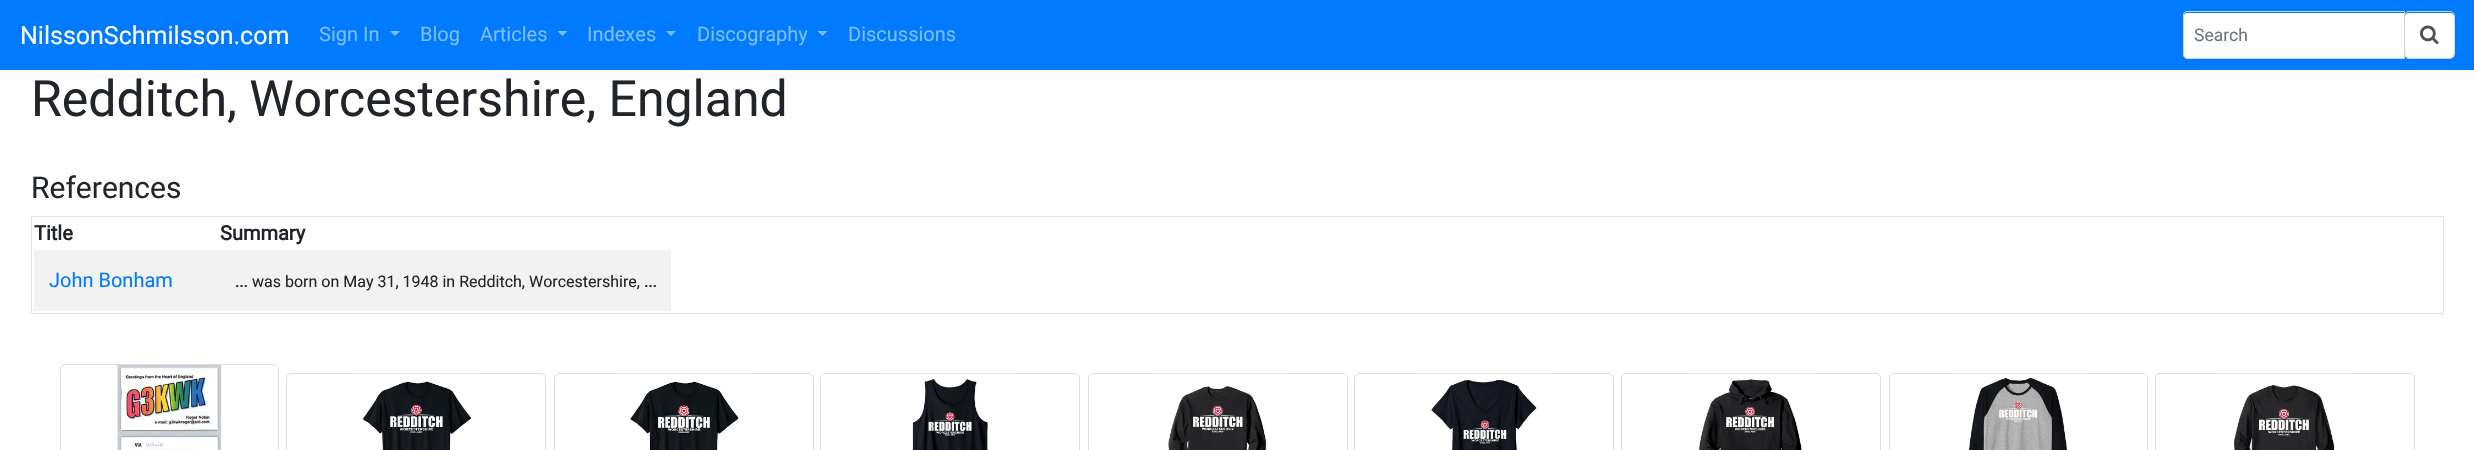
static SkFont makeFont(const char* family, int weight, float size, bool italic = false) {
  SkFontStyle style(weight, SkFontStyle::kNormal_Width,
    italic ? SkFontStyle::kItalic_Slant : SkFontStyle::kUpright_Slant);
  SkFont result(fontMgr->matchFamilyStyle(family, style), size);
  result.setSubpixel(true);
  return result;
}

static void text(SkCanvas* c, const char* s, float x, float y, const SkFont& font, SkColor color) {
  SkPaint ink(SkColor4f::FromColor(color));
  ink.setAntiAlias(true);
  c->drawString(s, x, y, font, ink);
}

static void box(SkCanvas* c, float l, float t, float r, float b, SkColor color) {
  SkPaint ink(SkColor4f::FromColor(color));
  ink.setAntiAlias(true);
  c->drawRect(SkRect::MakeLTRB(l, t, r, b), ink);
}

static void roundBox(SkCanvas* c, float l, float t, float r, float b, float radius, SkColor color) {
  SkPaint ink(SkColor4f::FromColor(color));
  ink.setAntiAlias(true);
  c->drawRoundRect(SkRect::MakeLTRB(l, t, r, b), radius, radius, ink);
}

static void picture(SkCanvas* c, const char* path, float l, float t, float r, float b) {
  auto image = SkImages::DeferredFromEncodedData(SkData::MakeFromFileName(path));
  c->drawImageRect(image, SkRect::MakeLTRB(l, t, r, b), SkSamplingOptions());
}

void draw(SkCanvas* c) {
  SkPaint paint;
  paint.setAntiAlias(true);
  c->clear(0xffffffff);
  box(c, 0, 0, 2474, 70, 0xff007bff);
  SkFont face1 = makeFont("Roboto", 400, 25);
  text(c, "NilssonSchmilsson.com", 20, 44, face1, 0xffffffff);
  SkFont face2 = makeFont("Roboto", 400, 20);
  text(c, "Sign In", 319, 41, face2, 0xff80bdff);
  paint.setColor(0xff80bdff);
  c->drawPath(SkPathBuilder().moveTo(390, 31).lineTo(400, 31).lineTo(395, 36).close().detach(), paint);
  text(c, "Blog", 420, 41, face2, 0xff80bdff);
  text(c, "Articles", 480, 41, face2, 0xff80bdff);
  c->drawPath(SkPathBuilder().moveTo(557.5f, 31).lineTo(567.5f, 31).lineTo(562.5f, 36).close().detach(), paint);
  text(c, "Indexes", 587, 41, face2, 0xff80bdff);
  c->drawPath(SkPathBuilder().moveTo(666, 31).lineTo(676, 31).lineTo(671, 36).close().detach(), paint);
  text(c, "Discography", 697, 41, face2, 0xff80bdff);
  c->drawPath(SkPathBuilder().moveTo(817.5f, 31).lineTo(827.5f, 31).lineTo(822.5f, 36).close().detach(), paint);
  text(c, "Discussions", 848, 41, face2, 0xff80bdff);
  paint.setColor(0xffffffff);
  c->drawPath(SkPathBuilder().moveTo(2186.5f, 13).lineTo(2404, 13).lineTo(2404, 58).lineTo(2186.5f, 58).cubicTo(2185, 58, 2184, 57, 2184, 55.5f).lineTo(2184, 15.5f).cubicTo(2184, 14, 2185, 13, 2186.5f, 13).close().detach(), paint);
  roundBox(c, 2405, 13, 2454, 58, 4, 0xffffffff);
  paint.setStyle(SkPaint::kStroke_Style);
  paint.setStrokeWidth(1);
  paint.setColor(0xffced4da);
  c->drawRoundRect(SkRect::MakeLTRB(2404.5f, 11.5f, 2454.5f, 58.5f), 4.5f, 4.5f, paint);
  c->drawPath(SkPathBuilder().moveTo(2187, 11.5f).lineTo(2404.5f, 11.5f).lineTo(2404.5f, 58.5f).lineTo(2187, 58.5f).cubicTo(2185, 58.5f, 2183.5f, 57, 2183.5f, 55).lineTo(2183.5f, 15).cubicTo(2183.5f, 13, 2185, 11.5f, 2187, 11.5f).close().detach(), paint);
  SkFont face3 = makeFont("Roboto", 400, 17.5f);
  text(c, "Search", 2194, 41, face3, 0xff6c757d);
  picture(c, "img_01.png", 2420, 25, 2439, 45);
  SkFont face4 = makeFont("Roboto", 400, 50);
  text(c, "Redditch, Worcestershire, England", 31, 116, face4, 0xff212529);
  SkFont face5 = makeFont("Roboto", 400, 30);
  text(c, "References", 31, 198, face5, 0xff212529);
  paint.setColor(0xffdee2e6);
  c->drawRect(SkRect::MakeLTRB(31.5f, 216.5f, 2443.5f, 313.5f), paint);
  SkFont face6 = makeFont("Roboto", 700, 20);
  text(c, "Title", 34, 240, face6, 0xff212529);
  text(c, "Summary", 220, 240, face6, 0xff212529);
  box(c, 34, 250, 671, 311, 0xfff2f2f2);
  text(c, "John Bonham", 49, 287, face2, 0xff007bff);
  SkFont face7 = makeFont("Roboto", 700, 16);
  text(c, "...", 235, 287, face7, 0xff212529);
  SkFont face8 = makeFont("Roboto", 400, 16);
  text(c, "was born on May 31, 1948 in Redditch, Worcestershire,", 252, 287, face8, 0xff212529);
  text(c, "...", 644, 287, face7, 0xff212529);
  paint.setColor(0xffdfdfdf);
  c->drawRoundRect(SkRect::MakeLTRB(60.5f, 364.5f, 278.5f, 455.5f), 4.5f, 4.5f, paint);
  picture(c, "img_02.png", 117, 365, 222, 450);
  c->drawRoundRect(SkRect::MakeLTRB(286.5f, 373.5f, 545.5f, 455.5f), 4.5f, 4.5f, paint);
  picture(c, "img_03.png", 347, 373, 485, 450);
  c->drawRoundRect(SkRect::MakeLTRB(554.5f, 373.5f, 813.5f, 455.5f), 4.5f, 4.5f, paint);
  picture(c, "img_04.png", 615, 373, 753, 450);
  c->drawRoundRect(SkRect::MakeLTRB(820.5f, 373.5f, 1079.5f, 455.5f), 4.5f, 4.5f, paint);
  picture(c, "img_05.png", 881, 373, 1019, 450);
  c->drawRoundRect(SkRect::MakeLTRB(1088.5f, 373.5f, 1347.5f, 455.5f), 4.5f, 4.5f, paint);
  picture(c, "img_06.png", 1149, 373, 1286, 450);
  c->drawRoundRect(SkRect::MakeLTRB(1354.5f, 373.5f, 1613.5f, 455.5f), 4.5f, 4.5f, paint);
  picture(c, "img_07.png", 1415, 373, 1553, 450);
  c->drawRoundRect(SkRect::MakeLTRB(1621.5f, 373.5f, 1880.5f, 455.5f), 4.5f, 4.5f, paint);
  picture(c, "img_08.png", 1682, 373, 1820, 450);
  c->drawRoundRect(SkRect::MakeLTRB(1889.5f, 373.5f, 2147.5f, 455.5f), 4.5f, 4.5f, paint);
  picture(c, "img_09.png", 1949, 373, 2086, 450);
  c->drawRoundRect(SkRect::MakeLTRB(2155.5f, 373.5f, 2414.5f, 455.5f), 4.5f, 4.5f, paint);
  picture(c, "img_10.png", 2216, 373, 2354, 450);
}
